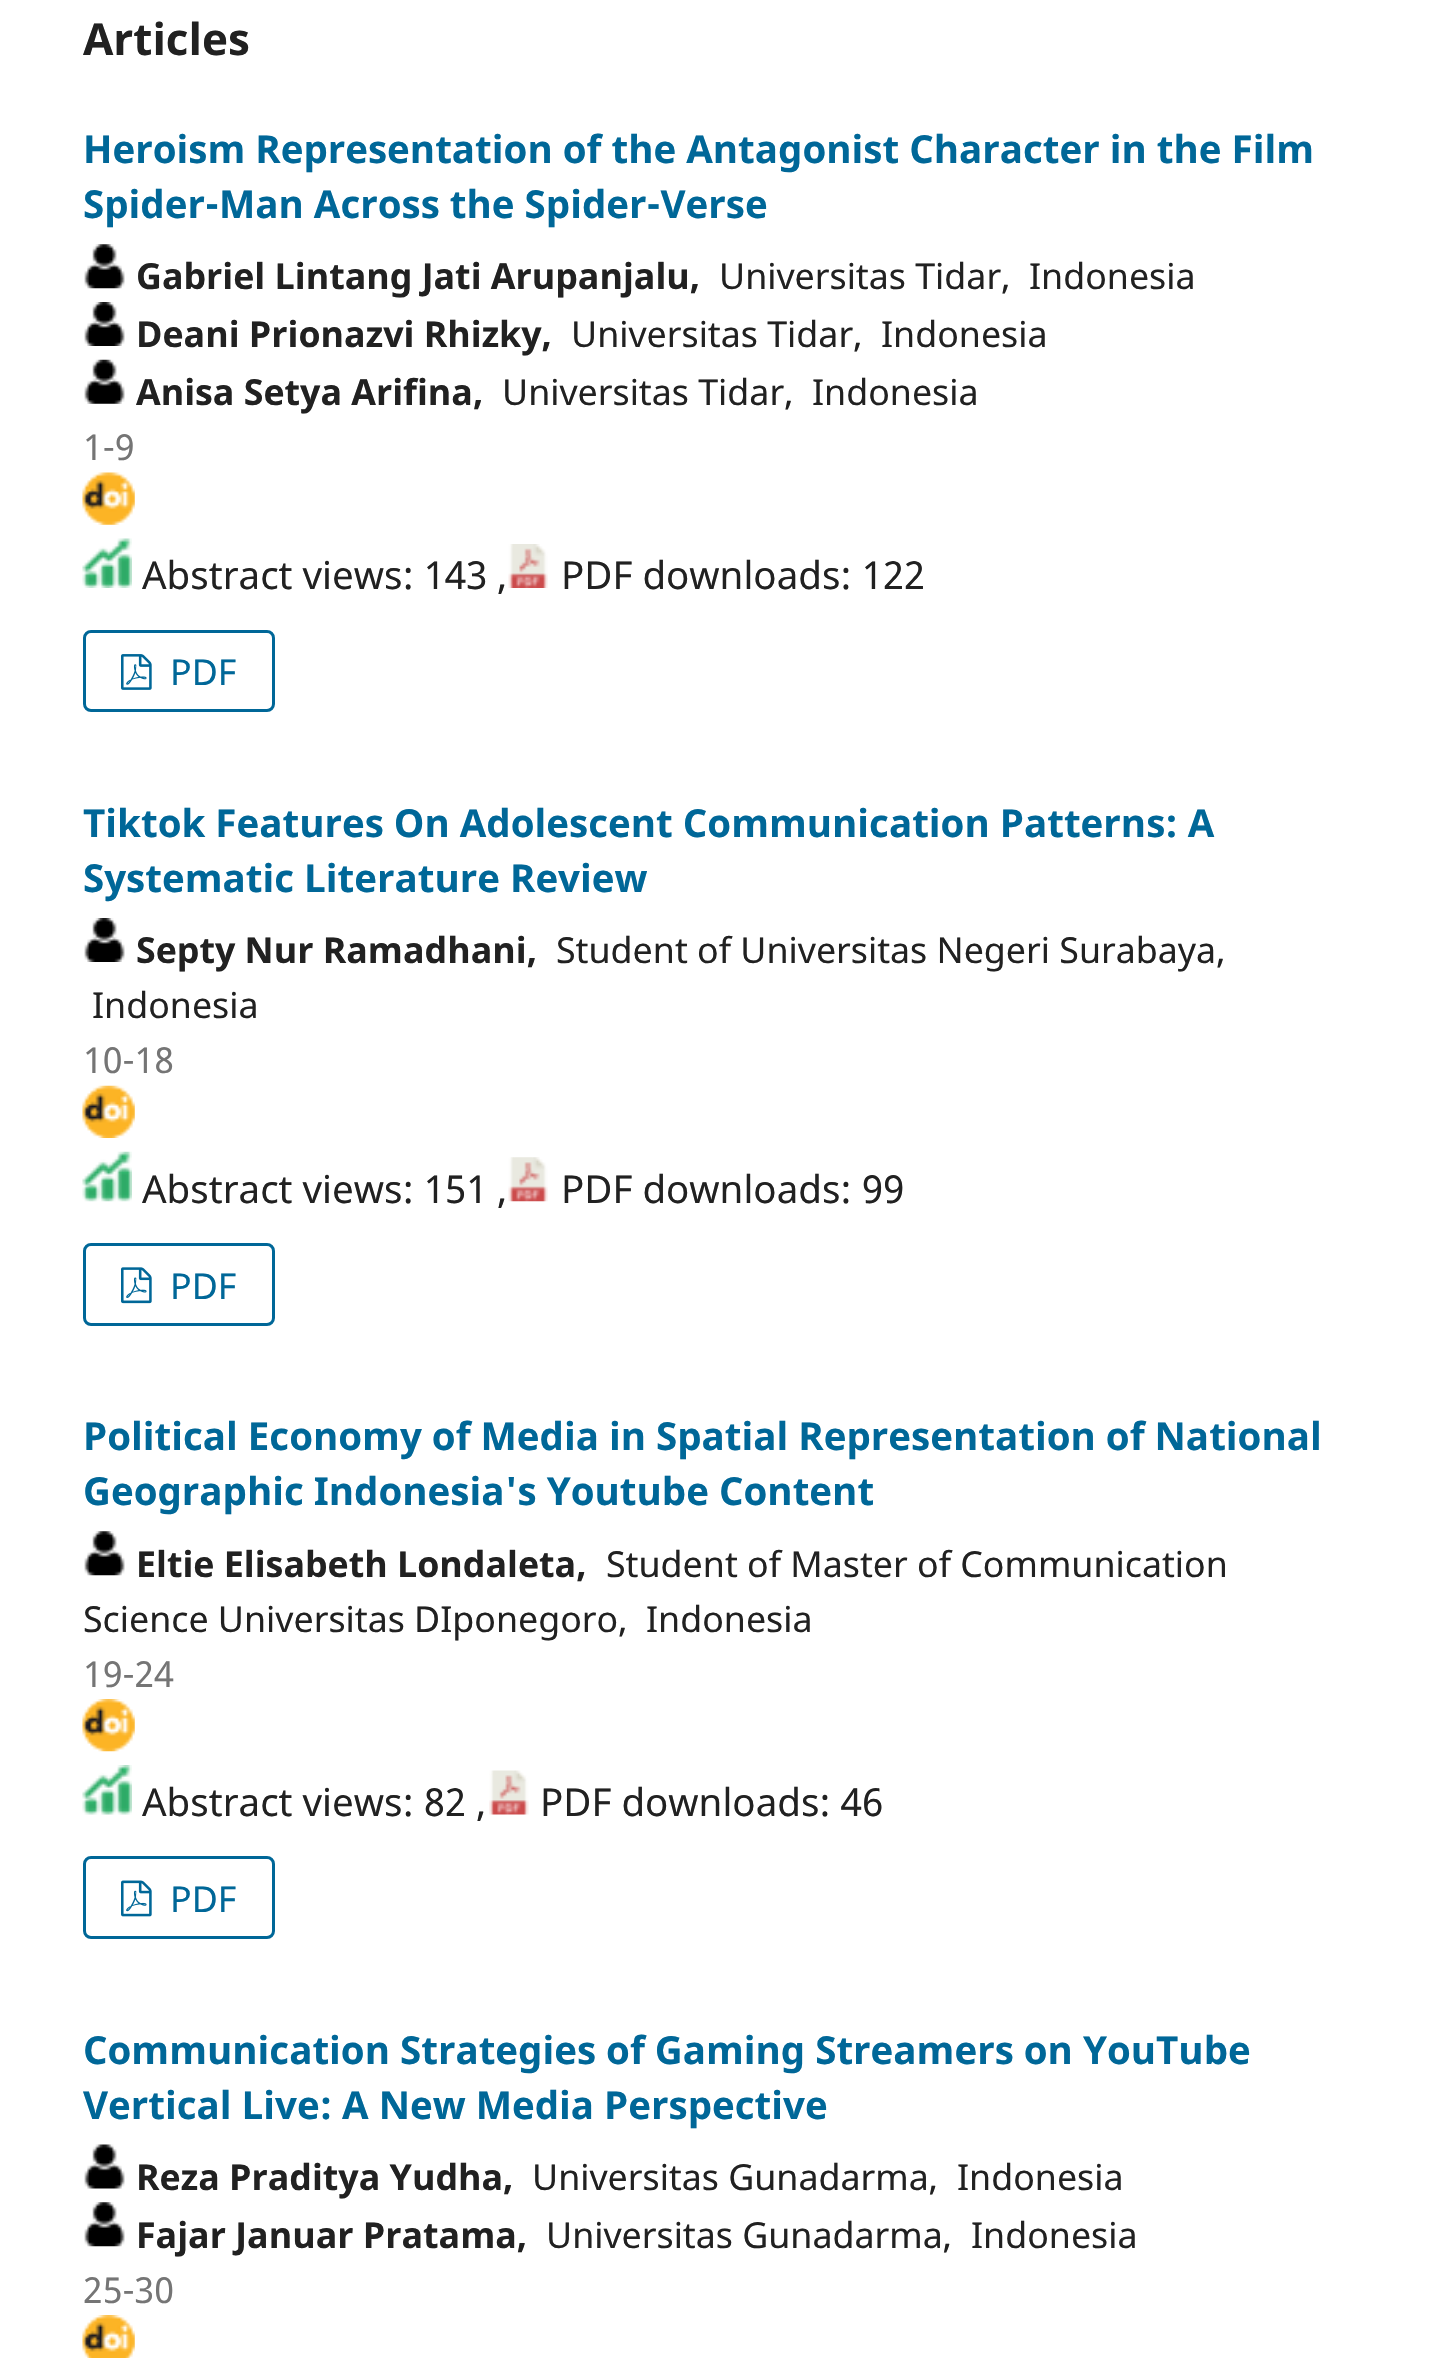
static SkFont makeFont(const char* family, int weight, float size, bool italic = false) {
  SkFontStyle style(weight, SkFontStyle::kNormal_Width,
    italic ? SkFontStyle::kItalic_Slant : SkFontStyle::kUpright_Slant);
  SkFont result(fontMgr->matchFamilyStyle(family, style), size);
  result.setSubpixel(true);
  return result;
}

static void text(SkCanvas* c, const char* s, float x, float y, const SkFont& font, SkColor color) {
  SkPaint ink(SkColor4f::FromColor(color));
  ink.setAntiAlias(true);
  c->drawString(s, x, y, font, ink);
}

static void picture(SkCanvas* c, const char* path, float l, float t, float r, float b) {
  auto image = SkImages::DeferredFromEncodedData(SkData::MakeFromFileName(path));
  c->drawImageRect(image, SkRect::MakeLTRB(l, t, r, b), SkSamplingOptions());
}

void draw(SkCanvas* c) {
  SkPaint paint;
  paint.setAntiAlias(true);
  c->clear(0xffffffff);
  SkFont face1 = makeFont("Noto Sans", 700, 44);
  text(c, "Articles", 83, 55, face1, 0xff212121);
  SkFont face2 = makeFont("Noto Sans", 700, 38.5f);
  text(c, "Heroism Representation of the Antagonist Character in the Film", 83, 163, face2, 0xff006798);
  text(c, "Spider-Man Across the Spider-Verse", 83, 218, face2, 0xff006798);
  picture(c, "img_01.png", 84, 244, 125, 289);
  SkFont face3 = makeFont("Noto Sans", 700, 35.75f);
  text(c, "Gabriel Lintang Jati Arupanjalu,", 136, 289, face3, 0xff212121);
  SkFont face4 = makeFont("Noto Sans", 400, 35.75f);
  text(c, "Universitas Tidar,", 719, 289, face4, 0xff212121);
  text(c, "Indonesia", 1029, 289, face4, 0xff212121);
  picture(c, "img_02.png", 84, 302, 125, 346);
  text(c, "Deani Prionazvi Rhizky,", 136, 347, face3, 0xff212121);
  text(c, "Universitas Tidar,", 571, 347, face4, 0xff212121);
  text(c, "Indonesia", 881, 347, face4, 0xff212121);
  picture(c, "img_03.png", 84, 359, 125, 404);
  text(c, "Anisa Setya Arifina,", 136, 405, face3, 0xff212121);
  text(c, "Universitas Tidar,", 502, 405, face4, 0xff212121);
  text(c, "Indonesia", 812, 405, face4, 0xff212121);
  text(c, "1-9", 83, 460, face4, 0xff757575);
  picture(c, "img_04.png", 82, 472, 135, 525);
  picture(c, "img_05.png", 82, 538, 132, 588);
  SkFont face5 = makeFont("Noto Sans", 400, 38.5f);
  text(c, "Abstract views: 143 ,", 142, 589, face5, 0xff212121);
  picture(c, "img_06.png", 508, 544, 548, 588);
  text(c, "PDF downloads: 122", 561, 589, face5, 0xff212121);
  paint.setStyle(SkPaint::kStroke_Style);
  paint.setStrokeWidth(3);
  paint.setColor(0xff006798);
  c->drawRoundRect(SkRect::MakeLTRB(84.5f, 631.5f, 273.5f, 710.5f), 6.5f, 6.5f, paint);
  picture(c, "img_07.png", 121, 654, 152, 690);
  text(c, "PDF", 170, 685, face4, 0xff006798);
  text(c, "Tiktok Features On Adolescent Communication Patterns: A", 83, 837, face2, 0xff006798);
  text(c, "Systematic Literature Review", 83, 892, face2, 0xff006798);
  picture(c, "img_02.png", 84, 918, 125, 962);
  text(c, "Septy Nur Ramadhani,", 136, 963, face3, 0xff212121);
  text(c, "Student of Universitas Negeri Surabaya,", 556, 963, face4, 0xff212121);
  text(c, "Indonesia", 92, 1018, face4, 0xff212121);
  text(c, "10-18", 83, 1073, face4, 0xff757575);
  picture(c, "img_08.png", 82, 1085, 135, 1138);
  picture(c, "img_09.png", 82, 1151, 132, 1202);
  text(c, "Abstract views: 151 ,", 142, 1203, face5, 0xff212121);
  picture(c, "img_10.png", 508, 1157, 548, 1202);
  text(c, "PDF downloads: 99", 561, 1203, face5, 0xff212121);
  c->drawRoundRect(SkRect::MakeLTRB(84.5f, 1244.5f, 273.5f, 1324.5f), 6.5f, 6.5f, paint);
  picture(c, "img_11.png", 121, 1267, 152, 1304);
  text(c, "PDF", 170, 1299, face4, 0xff006798);
  text(c, "Political Economy of Media in Spatial Representation of National", 83, 1450, face2, 0xff006798);
  text(c, "Geographic Indonesia's Youtube Content", 83, 1505, face2, 0xff006798);
  picture(c, "img_01.png", 84, 1531, 125, 1576);
  text(c, "Eltie Elisabeth Londaleta,", 136, 1577, face3, 0xff212121);
  text(c, "Student of Master of Communication", 606, 1577, face4, 0xff212121);
  text(c, "Science Universitas DIponegoro,", 83, 1632, face4, 0xff212121);
  text(c, "Indonesia", 646, 1632, face4, 0xff212121);
  text(c, "19-24", 83, 1687, face4, 0xff757575);
  picture(c, "img_12.png", 82, 1699, 135, 1752);
  picture(c, "img_13.png", 82, 1765, 132, 1815);
  text(c, "Abstract views: 82 ,", 142, 1816, face5, 0xff212121);
  picture(c, "img_14.png", 489, 1770, 529, 1815);
  text(c, "PDF downloads: 46", 540, 1816, face5, 0xff212121);
  c->drawRoundRect(SkRect::MakeLTRB(84.5f, 1857.5f, 273.5f, 1937.5f), 6.5f, 6.5f, paint);
  picture(c, "img_15.png", 121, 1880, 152, 1917);
  text(c, "PDF", 170, 1912, face4, 0xff006798);
  text(c, "Communication Strategies of Gaming Streamers on YouTube", 83, 2064, face2, 0xff006798);
  text(c, "Vertical Live: A New Media Perspective", 83, 2119, face2, 0xff006798);
  picture(c, "img_16.png", 84, 2144, 125, 2189);
  text(c, "Reza Praditya Yudha,", 136, 2190, face3, 0xff212121);
  text(c, "Universitas Gunadarma,", 532, 2190, face4, 0xff212121);
  text(c, "Indonesia", 957, 2190, face4, 0xff212121);
  picture(c, "img_01.png", 84, 2202, 125, 2247);
  text(c, "Fajar Januar Pratama,", 136, 2248, face3, 0xff212121);
  text(c, "Universitas Gunadarma,", 546, 2248, face4, 0xff212121);
  text(c, "Indonesia", 971, 2248, face4, 0xff212121);
  text(c, "25-30", 83, 2303, face4, 0xff757575);
  picture(c, "img_17.png", 82, 2315, 135, 2358);
}
